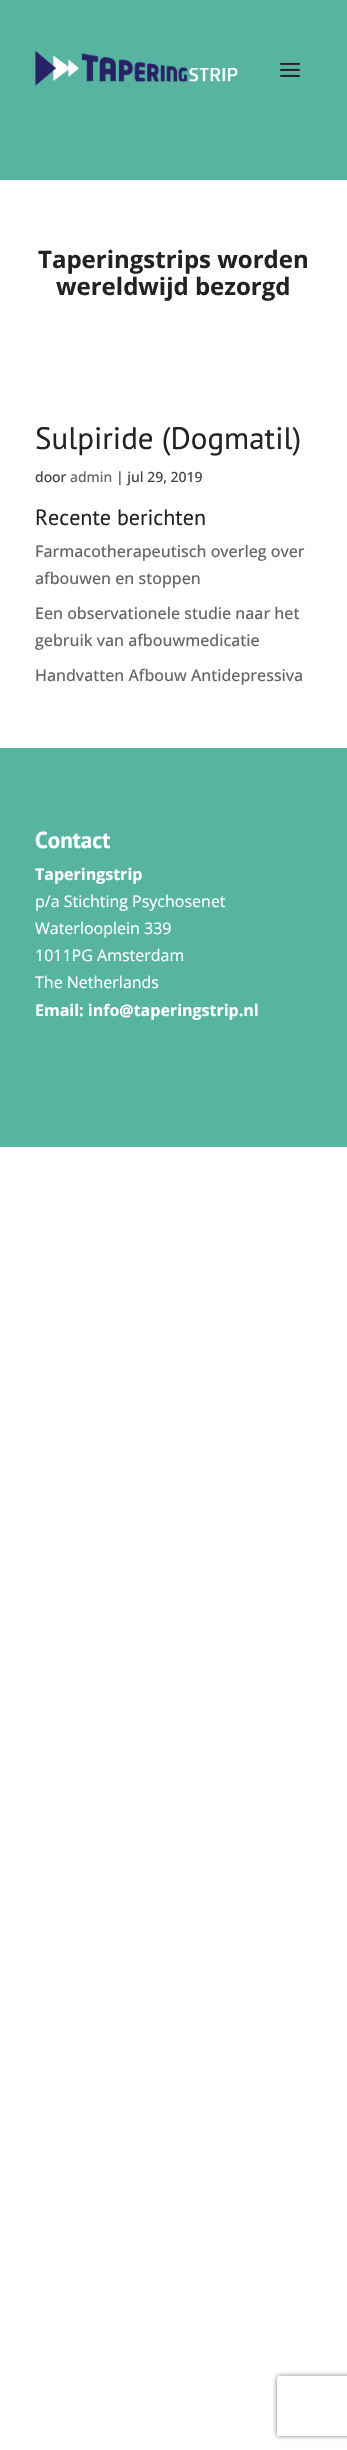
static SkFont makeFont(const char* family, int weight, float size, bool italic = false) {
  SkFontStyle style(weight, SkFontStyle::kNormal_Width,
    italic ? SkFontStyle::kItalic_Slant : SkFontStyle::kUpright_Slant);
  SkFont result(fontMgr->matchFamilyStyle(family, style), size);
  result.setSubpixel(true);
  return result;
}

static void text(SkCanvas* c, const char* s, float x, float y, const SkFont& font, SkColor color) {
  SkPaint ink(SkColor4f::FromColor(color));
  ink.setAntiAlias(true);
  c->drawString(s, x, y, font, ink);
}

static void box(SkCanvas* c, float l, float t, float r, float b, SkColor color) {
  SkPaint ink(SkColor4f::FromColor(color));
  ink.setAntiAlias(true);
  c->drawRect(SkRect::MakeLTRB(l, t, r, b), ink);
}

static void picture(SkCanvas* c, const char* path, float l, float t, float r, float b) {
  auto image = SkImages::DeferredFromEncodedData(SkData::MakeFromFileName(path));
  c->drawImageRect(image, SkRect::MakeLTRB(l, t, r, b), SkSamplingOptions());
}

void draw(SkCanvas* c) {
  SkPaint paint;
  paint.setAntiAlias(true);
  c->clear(0xffffffff);
  box(c, 0, 0, 347, 180, 0xff57b4a0);
  picture(c, "img_01.png", 35, 50, 238, 86);
  picture(c, "img_02.png", 280, 62, 300, 77);
  SkFont face1 = makeFont("Open Sans", 700, 24);
  text(c, "Taperingstrips worden", 38, 268, face1, 0xff222222);
  text(c, "wereldwijd bezorgd", 56, 295, face1, 0xff222222);
  SkFont face2 = makeFont("PT Sans", 400, 31);
  text(c, "Sulpiride (Dogmatil)", 35, 449, face2, 0xff222222);
  SkFont face3 = makeFont("Open Sans", 500, 14);
  text(c, "door", 35, 482, face3, 0xff444444);
  text(c, "admin", 70, 482, face3, 0xff666666);
  text(c, "| jul 29, 2019", 116, 482, face3, 0xff444444);
  SkFont face4 = makeFont("PT Sans", 400, 22);
  text(c, "Recente berichten", 35, 525, face4, 0xff222222);
  SkFont face5 = makeFont("Open Sans", 500, 16);
  text(c, "Farmacotherapeutisch overleg over", 35, 557, face5, 0xff666666);
  text(c, "afbouwen en stoppen", 35, 584, face5, 0xff666666);
  text(c, "Een observationele studie naar het", 35, 619, face5, 0xff666666);
  text(c, "gebruik van afbouwmedicatie", 35, 646, face5, 0xff666666);
  text(c, "Handvatten Afbouw Antidepressiva", 35, 681, face5, 0xff666666);
  box(c, 0, 748, 347, 1147, 0xff57b4a0);
  SkFont face6 = makeFont("PT Sans", 700, 23);
  text(c, "Contact", 35, 848, face6, 0xffffffff);
  SkFont face7 = makeFont("Open Sans", 700, 16);
  text(c, "Taperingstrip", 35, 880, face7, 0xffffffff);
  SkFont face8 = makeFont("Open Sans", 400, 16);
  text(c, "p/a Stichting Psychosenet", 35, 907, face8, 0xffffffff);
  text(c, "Waterlooplein 339", 35, 934, face8, 0xffffffff);
  text(c, "1011PG Amsterdam", 35, 961, face8, 0xffffffff);
  text(c, "The Netherlands", 35, 988, face8, 0xffffffff);
  text(c, "Email: info@taperingstrip.nl", 35, 1016, face7, 0xffffffff);
  c->save();
  c->clipPath(SkPathBuilder(SkPathFillType::kEvenOdd).moveTo(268, 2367).lineTo(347, 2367).lineTo(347, 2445).lineTo(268, 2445).close().moveTo(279, 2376).lineTo(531, 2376).cubicTo(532, 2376, 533, 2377, 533, 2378).lineTo(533, 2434).cubicTo(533, 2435, 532, 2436, 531, 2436).lineTo(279, 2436).cubicTo(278, 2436, 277, 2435, 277, 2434).lineTo(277, 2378).cubicTo(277, 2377, 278, 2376, 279, 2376).close().detach(), true);
  paint.setColor(0xff808080);
  paint.setMaskFilter(SkMaskFilter::MakeBlur(kNormal_SkBlurStyle, 2.5f));
  c->drawRoundRect(SkRect::MakeLTRB(277, 2376, 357, 2436), 2, 2, paint);
  paint.setMaskFilter(nullptr);
  c->restore();
}
